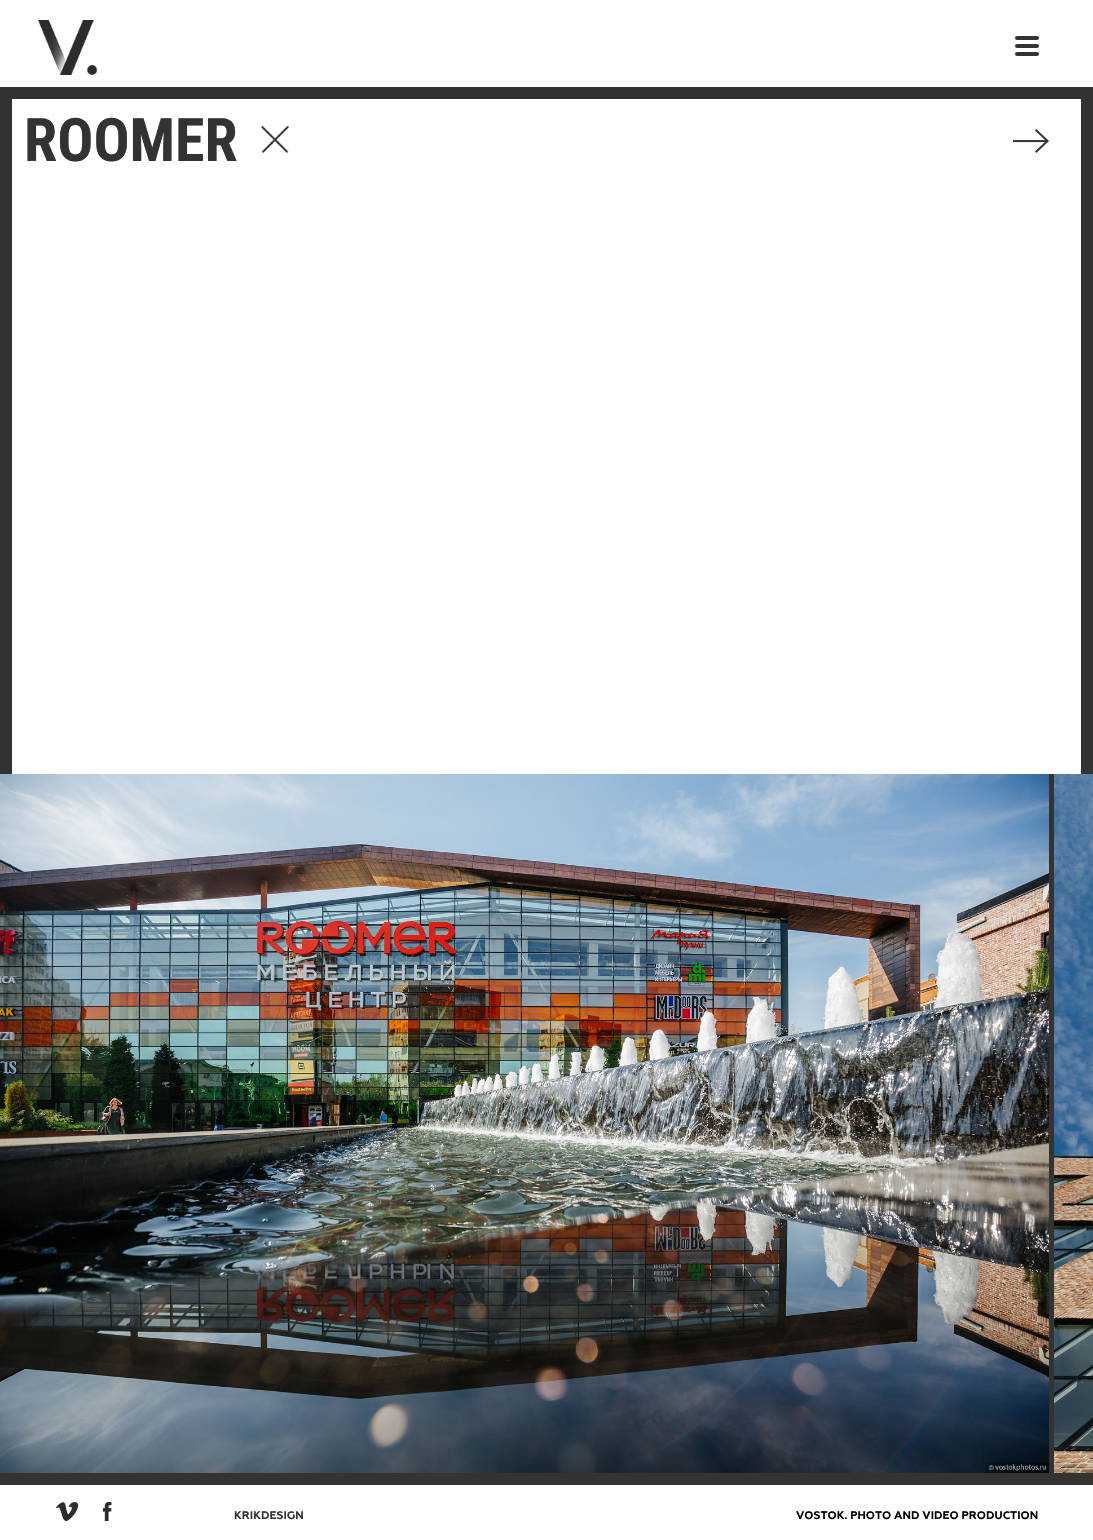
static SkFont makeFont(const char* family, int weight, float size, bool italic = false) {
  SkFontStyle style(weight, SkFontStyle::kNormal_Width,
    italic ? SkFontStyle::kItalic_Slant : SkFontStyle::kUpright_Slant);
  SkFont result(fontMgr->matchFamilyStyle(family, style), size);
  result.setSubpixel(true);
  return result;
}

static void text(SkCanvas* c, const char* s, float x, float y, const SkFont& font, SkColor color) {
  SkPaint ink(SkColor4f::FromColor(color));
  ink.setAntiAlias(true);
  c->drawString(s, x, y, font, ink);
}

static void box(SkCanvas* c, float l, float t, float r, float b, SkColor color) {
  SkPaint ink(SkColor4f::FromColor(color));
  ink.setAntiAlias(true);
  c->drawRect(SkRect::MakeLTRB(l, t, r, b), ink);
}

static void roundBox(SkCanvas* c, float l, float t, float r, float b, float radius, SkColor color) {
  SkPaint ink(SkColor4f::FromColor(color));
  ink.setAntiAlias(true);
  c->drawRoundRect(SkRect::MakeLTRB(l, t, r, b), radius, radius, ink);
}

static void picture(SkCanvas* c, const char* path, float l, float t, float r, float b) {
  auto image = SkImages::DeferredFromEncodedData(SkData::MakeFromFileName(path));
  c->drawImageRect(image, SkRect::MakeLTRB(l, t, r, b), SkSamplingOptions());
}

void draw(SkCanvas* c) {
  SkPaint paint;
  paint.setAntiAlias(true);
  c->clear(0xffffffff);
  picture(c, "img_01.png", 38, 20, 98, 75);
  roundBox(c, 1015, 36, 1039, 40, 2, 0xff333333);
  roundBox(c, 1015, 44, 1039, 48, 2, 0xff333333);
  roundBox(c, 1015, 52, 1039, 56, 2, 0xff333333);
  box(c, 0, 87, 1093, 1485, 0xff333333);
  box(c, 12, 99, 1081, 774, 0xffffffff);
  SkFont face1 = makeFont("Roboto Condensed", 700, 60);
  text(c, "ROOMER", 24, 161, face1, 0xff333333);
  picture(c, "img_02.png", 261, 125, 289, 153);
  picture(c, "img_03.png", 1013, 129, 1049, 153);
  picture(c, "img_04.png", 0, 774, 1049, 1473);
  picture(c, "img_05.png", 1054, 774, 1093, 1473);
  picture(c, "img_06.png", 56, 1502, 79, 1521);
  picture(c, "img_07.png", 103, 1502, 112, 1521);
  SkFont face2 = makeFont("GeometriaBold", 700, 11);
  text(c, "KRIKDESIGN", 234, 1519, face2, 0xff333333);
  text(c, "VOSTOK. PHOTO AND VIDEO PRODUCTION", 796, 1519, face2, 0xff000000);
}
